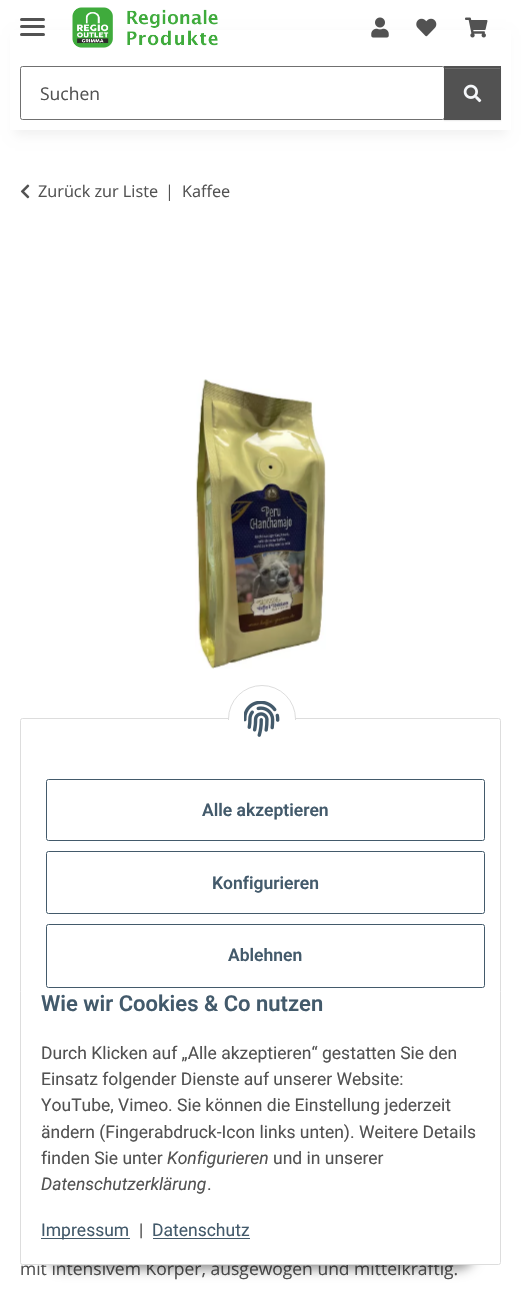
static SkFont makeFont(const char* family, int weight, float size, bool italic = false) {
  SkFontStyle style(weight, SkFontStyle::kNormal_Width,
    italic ? SkFontStyle::kItalic_Slant : SkFontStyle::kUpright_Slant);
  SkFont result(fontMgr->matchFamilyStyle(family, style), size);
  result.setSubpixel(true);
  return result;
}

static void text(SkCanvas* c, const char* s, float x, float y, const SkFont& font, SkColor color) {
  SkPaint ink(SkColor4f::FromColor(color));
  ink.setAntiAlias(true);
  c->drawString(s, x, y, font, ink);
}

static void box(SkCanvas* c, float l, float t, float r, float b, SkColor color) {
  SkPaint ink(SkColor4f::FromColor(color));
  ink.setAntiAlias(true);
  c->drawRect(SkRect::MakeLTRB(l, t, r, b), ink);
}

static void roundBox(SkCanvas* c, float l, float t, float r, float b, float radius, SkColor color) {
  SkPaint ink(SkColor4f::FromColor(color));
  ink.setAntiAlias(true);
  c->drawRoundRect(SkRect::MakeLTRB(l, t, r, b), radius, radius, ink);
}

static void picture(SkCanvas* c, const char* path, float l, float t, float r, float b) {
  auto image = SkImages::DeferredFromEncodedData(SkData::MakeFromFileName(path));
  c->drawImageRect(image, SkRect::MakeLTRB(l, t, r, b), SkSamplingOptions());
}

void draw(SkCanvas* c) {
  SkPaint paint;
  paint.setAntiAlias(true);
  c->clear(0xffffffff);
  paint.setColor(0x0f000000);
  paint.setMaskFilter(SkMaskFilter::MakeBlur(kNormal_SkBlurStyle, 5.5f));
  c->drawRect(SkRect::MakeLTRB(15, 35, 506, 135), paint);
  paint.setMaskFilter(nullptr);
  box(c, 10, 30, 511, 130, 0xffffffff);
  roundBox(c, 20, 25, 45, 28, 1.5f, 0xff525252);
  roundBox(c, 20, 18, 45, 21, 1.5f, 0xff525252);
  roundBox(c, 20, 33, 45, 36, 1.5f, 0xff525252);
  picture(c, "img_01.png", 72, 7, 218, 48);
  picture(c, "img_02.png", 371, 17, 389, 38);
  picture(c, "img_03.png", 416, 18, 437, 37);
  picture(c, "img_04.png", 465, 17, 488, 38);
  paint.setStyle(SkPaint::kStroke_Style);
  paint.setStrokeWidth(1);
  paint.setColor(0xff707070);
  c->drawRoundRect(SkRect::MakeLTRB(20.5f, 66.5f, 444.5f, 119.5f), 2, 2, paint);
  SkFont face1 = makeFont("Open Sans", 400, 17.5f);
  text(c, "Suchen", 40, 100, face1, 0xff525252);
  paint.setStyle(SkPaint::kFill_Style);
  paint.setColor(0x12000000);
  paint.setMaskFilter(SkMaskFilter::MakeBlur(kNormal_SkBlurStyle, 0.5f));
  c->drawRect(SkRect::MakeLTRB(444, 68, 501, 121), paint);
  paint.setMaskFilter(nullptr);
  box(c, 444, 66, 501, 120, 0xff525252);
  box(c, 445, 68, 500, 69, 0xff6c6c6c);
  picture(c, "img_05.png", 463, 84, 482, 103);
  picture(c, "img_06.png", 20, 184, 30, 199);
  SkFont face2 = makeFont("Open Sans", 400, 16.25f);
  text(c, "Zurück zur Liste", 38, 197, face2, 0xff525252);
  text(c, "|", 165, 197, face2, 0xff525252);
  text(c, "Kaffee", 182, 197, face2, 0xff525252);
  picture(c, "img_07.png", 195, 379, 326, 669);
  text(c, "mit intensivem Körper, ausgewogen und mittelkräftig.", 20, 1275, face1, 0xff525252);
  paint.setColor(0x73000000);
  paint.setMaskFilter(SkMaskFilter::MakeBlur(kNormal_SkBlurStyle, 6));
  c->drawRoundRect(SkRect::MakeLTRB(45, 1229, 476, 1269), 20, 20, paint);
  paint.setMaskFilter(nullptr);
  paint.setColor(0xffffffff);
  c->drawRoundRect(SkRect::MakeLTRB(20.5f, 718.5f, 500.5f, 1264.5f), 2, 2, paint);
  paint.setStyle(SkPaint::kStroke_Style);
  paint.setColor(0xffdddddd);
  c->drawRoundRect(SkRect::MakeLTRB(20.5f, 718.5f, 500.5f, 1264.5f), 2, 2, paint);
  paint.setStyle(SkPaint::kFill_Style);
  paint.setColor(0xffffffff);
  c->drawRoundRect(SkRect::MakeLTRB(228.5f, 685.5f, 295.5f, 753.5f), 33.5f, 33.5f, paint);
  paint.setStyle(SkPaint::kStroke_Style);
  paint.setColor(0xffdddddd);
  c->drawRoundRect(SkRect::MakeLTRB(228.5f, 685.5f, 295.5f, 753.5f), 33.5f, 33.5f, paint);
  box(c, 228, 720, 296, 754, 0xffffffff);
  picture(c, "img_08.png", 244, 701, 280, 737);
  paint.setColor(0xff435a6b);
  c->drawRoundRect(SkRect::MakeLTRB(46.5f, 779.5f, 484.5f, 840.5f), 2, 2, paint);
  SkFont face3 = makeFont("Roboto", 600, 17.5f);
  text(c, "Alle akzeptieren", 202, 816, face3, 0xff435a6b);
  c->drawRoundRect(SkRect::MakeLTRB(46.5f, 851.5f, 484.5f, 913.5f), 2, 2, paint);
  text(c, "Konfigurieren", 212, 889, face3, 0xff435a6b);
  c->drawRoundRect(SkRect::MakeLTRB(46.5f, 924.5f, 484.5f, 987.5f), 2, 2, paint);
  text(c, "Ablehnen", 228, 961, face3, 0xff435a6b);
  SkFont face4 = makeFont("Roboto", 600, 22);
  text(c, "Wie wir Cookies & Co nutzen", 41, 1011, face4, 0xff435a6b);
  SkFont face5 = makeFont("Roboto", 400, 17.5f);
  text(c, "Durch Klicken auf „Alle akzeptieren“ gestatten Sie den", 41, 1059, face5, 0xff525252);
  text(c, "Einsatz folgender Dienste auf unserer Website:", 41, 1085, face5, 0xff525252);
  text(c, "YouTube, Vimeo. Sie können die Einstellung jederzeit", 41, 1111, face5, 0xff525252);
  text(c, "ändern (Fingerabdruck-Icon links unten). Weitere Details", 41, 1138, face5, 0xff525252);
  text(c, "finden Sie unter", 41, 1164, face5, 0xff525252);
  SkFont face6 = makeFont("Roboto", 400, 17.5f, true);
  text(c, "Konfigurieren", 167, 1164, face6, 0xff525252);
  text(c, "und in unserer", 273, 1164, face5, 0xff525252);
  text(c, "Datenschutzerklärung", 41, 1190, face6, 0xff525252);
  text(c, ".", 207, 1190, face5, 0xff525252);
  box(c, 41, 1238, 130, 1239, 0xff435a6b);
  text(c, "Impressum", 41, 1236, face5, 0xff435a6b);
  text(c, "|", 139, 1236, face5, 0xff525252);
  text(c, "Datenschutz", 152, 1236, face5, 0xff435a6b);
  box(c, 153, 1238, 250, 1239, 0xff435a6b);
}
